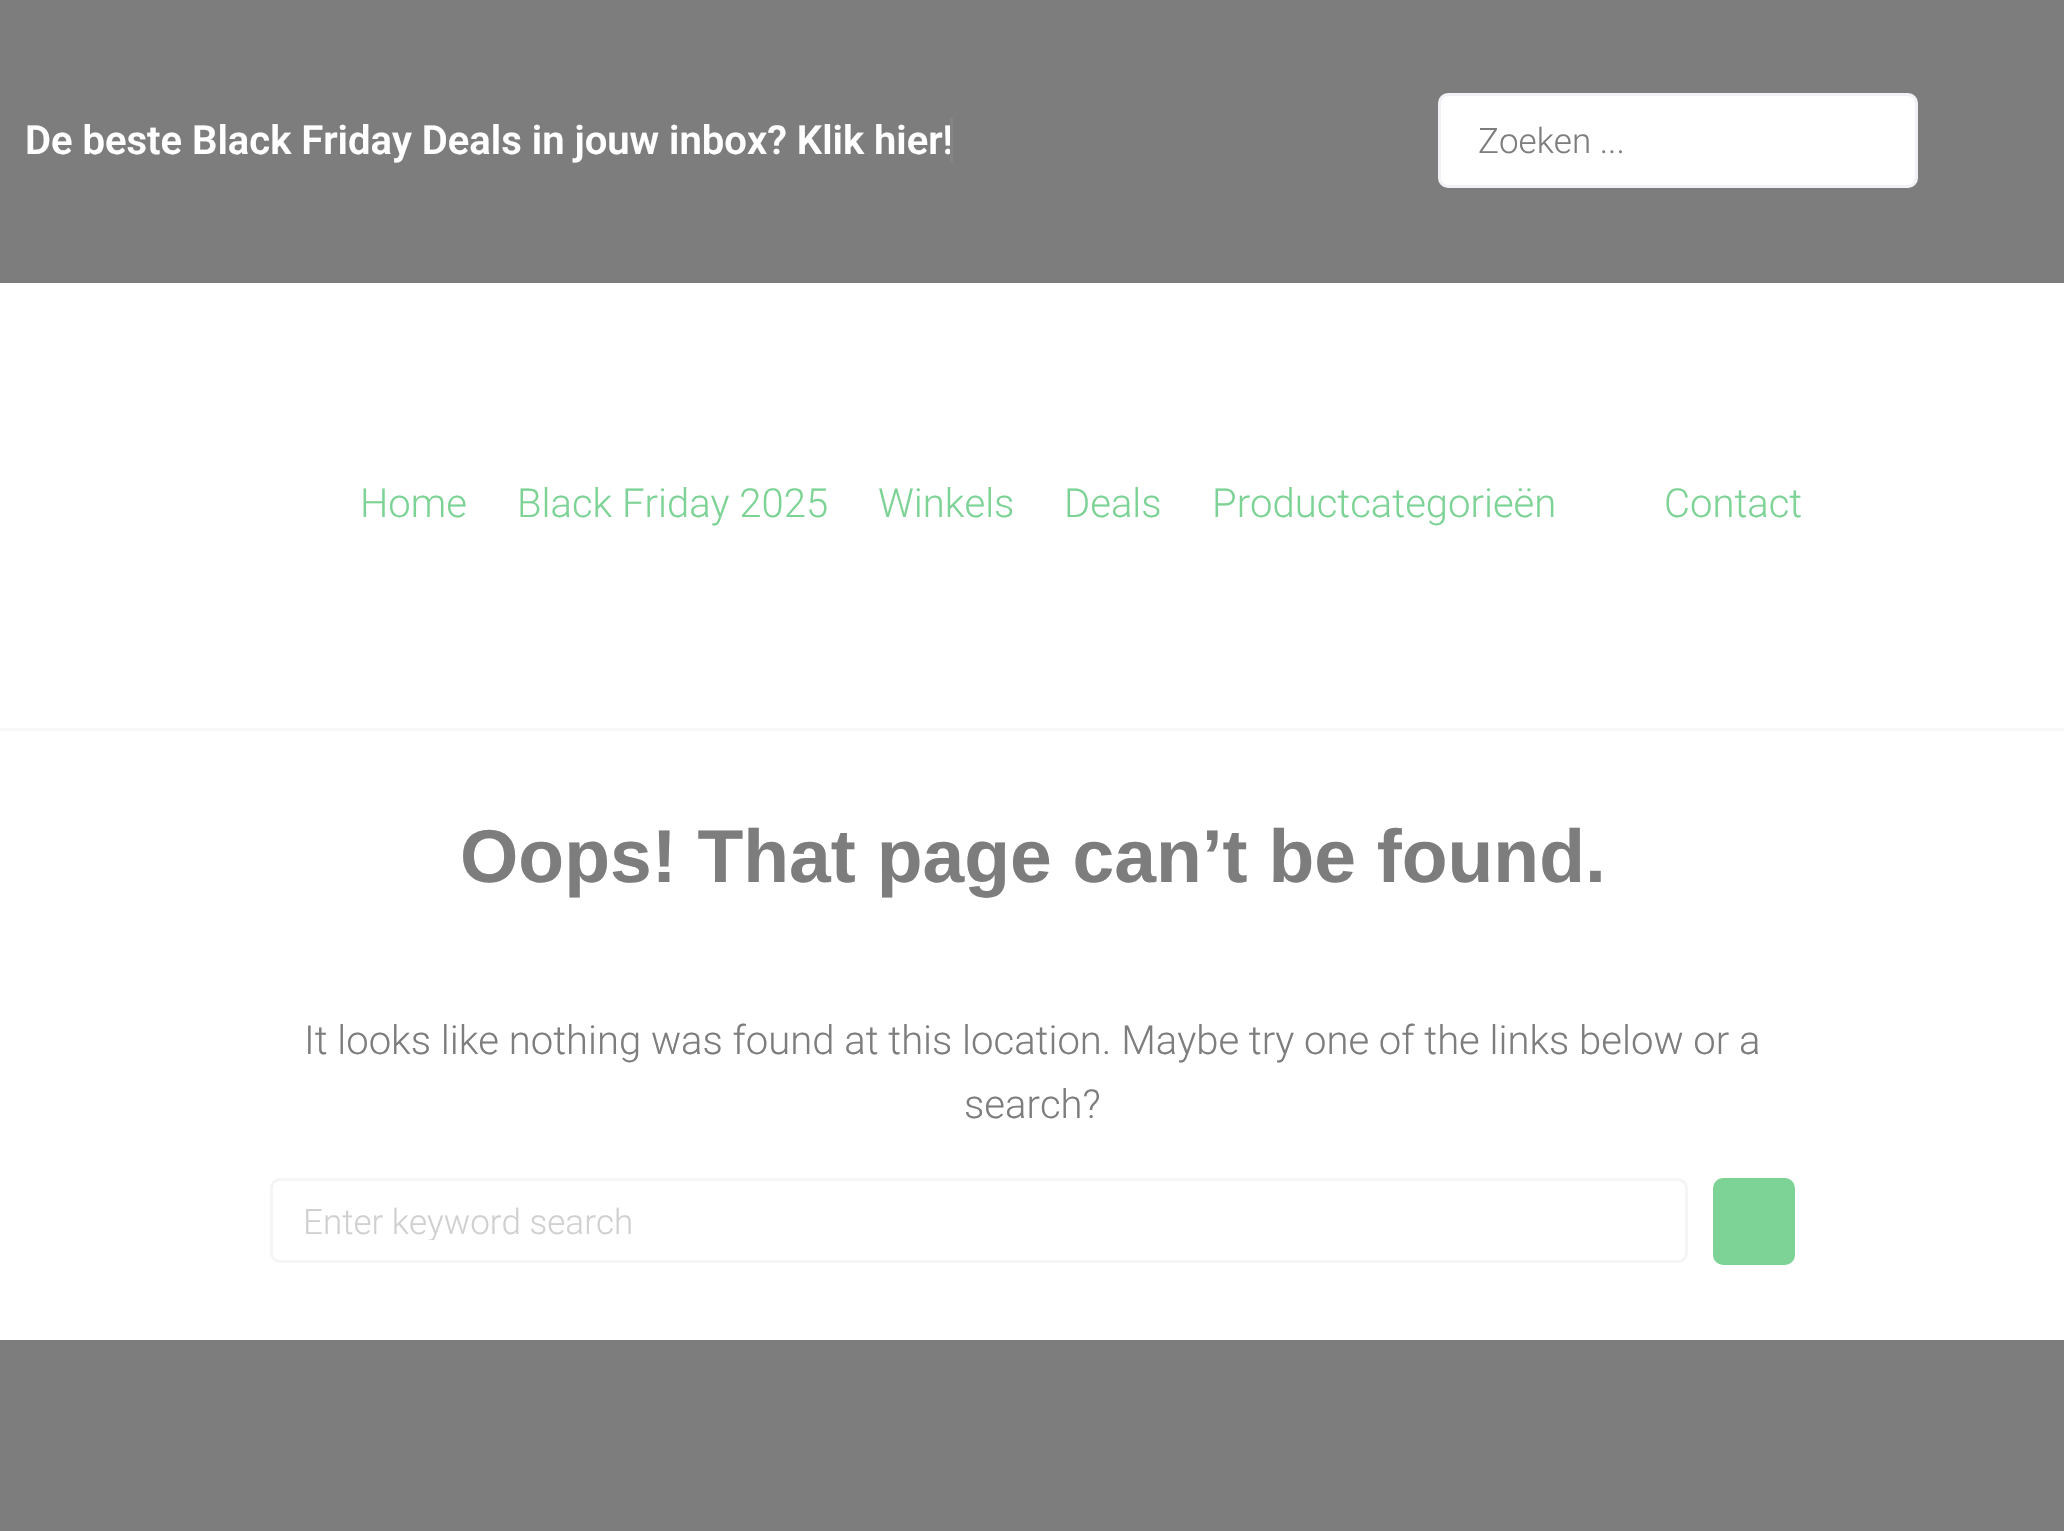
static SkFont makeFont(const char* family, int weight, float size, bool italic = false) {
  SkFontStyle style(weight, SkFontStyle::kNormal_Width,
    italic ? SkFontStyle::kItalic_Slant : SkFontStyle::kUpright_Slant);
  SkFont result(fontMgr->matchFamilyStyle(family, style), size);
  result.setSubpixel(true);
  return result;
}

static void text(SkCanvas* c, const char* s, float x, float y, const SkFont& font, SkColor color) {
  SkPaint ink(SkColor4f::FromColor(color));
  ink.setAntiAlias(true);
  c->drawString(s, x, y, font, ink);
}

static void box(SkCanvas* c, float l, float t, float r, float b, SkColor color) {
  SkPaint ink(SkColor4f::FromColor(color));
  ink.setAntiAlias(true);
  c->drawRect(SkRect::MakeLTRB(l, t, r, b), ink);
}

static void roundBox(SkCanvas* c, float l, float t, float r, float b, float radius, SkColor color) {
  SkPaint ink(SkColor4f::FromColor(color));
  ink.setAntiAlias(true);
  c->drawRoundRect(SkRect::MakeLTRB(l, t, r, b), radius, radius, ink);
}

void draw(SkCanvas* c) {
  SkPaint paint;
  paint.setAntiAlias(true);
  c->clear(0xffffffff);
  box(c, 0, 0, 2064, 283, 0xff7d7d7d);
  SkFont face1 = makeFont("Roboto", 600, 40);
  text(c, "De beste Black Friday Deals in jouw inbox? Klik hier!", 25, 154, face1, 0xffffffff);
  box(c, 950, 118, 953, 163, 0xff848484);
  paint.setColor(0xffffffff);
  c->drawRoundRect(SkRect::MakeLTRB(1439.5f, 94.5f, 1916.5f, 186.5f), 8.5f, 8.5f, paint);
  paint.setStyle(SkPaint::kStroke_Style);
  paint.setStrokeWidth(3);
  paint.setColor(0xfff0f2f5);
  c->drawRoundRect(SkRect::MakeLTRB(1439.5f, 94.5f, 1916.5f, 186.5f), 8.5f, 8.5f, paint);
  SkFont face2 = makeFont("Roboto", 300, 35);
  text(c, "Zoeken ...", 1478, 153, face2, 0xff7d7d7d);
  box(c, 0, 728, 2064, 731, 0xfff8f8f8);
  SkFont face3 = makeFont("Roboto", 300, 40);
  text(c, "Home", 360, 517, face3, 0xff7dd395);
  text(c, "Black Friday 2025", 517, 517, face3, 0xff7dd395);
  text(c, "Winkels", 878, 517, face3, 0xff7dd395);
  text(c, "Deals", 1064, 517, face3, 0xff7dd395);
  text(c, "Productcategorieën", 1212, 517, face3, 0xff7dd395);
  text(c, "Contact", 1664, 517, face3, 0xff7dd395);
  SkFont face4 = makeFont("Liberation Sans", 700, 75);
  text(c, "Oops! That page can’t be found.", 460, 882, face4, 0xff7d7d7d);
  text(c, "It looks like nothing was found at this location. Maybe try one of the links below or a", 304, 1054, face3, 0xff7d7d7d);
  text(c, "search?", 964, 1118, face3, 0xff7d7d7d);
  paint.setColor(0xfff5f5f6);
  c->drawRoundRect(SkRect::MakeLTRB(271.5f, 1179.5f, 1686.5f, 1261.5f), 8.5f, 8.5f, paint);
  c->save();
  c->clipRect(SkRect::MakeLTRB(303, 1200, 1645, 1240));
  text(c, "Enter keyword search", 303, 1234, face2, 0xffcfd0d1);
  c->restore();
  roundBox(c, 1713, 1178, 1795, 1265, 10, 0xff7dd395);
  box(c, 0, 1340, 2064, 1531, 0xff7d7d7d);
}
